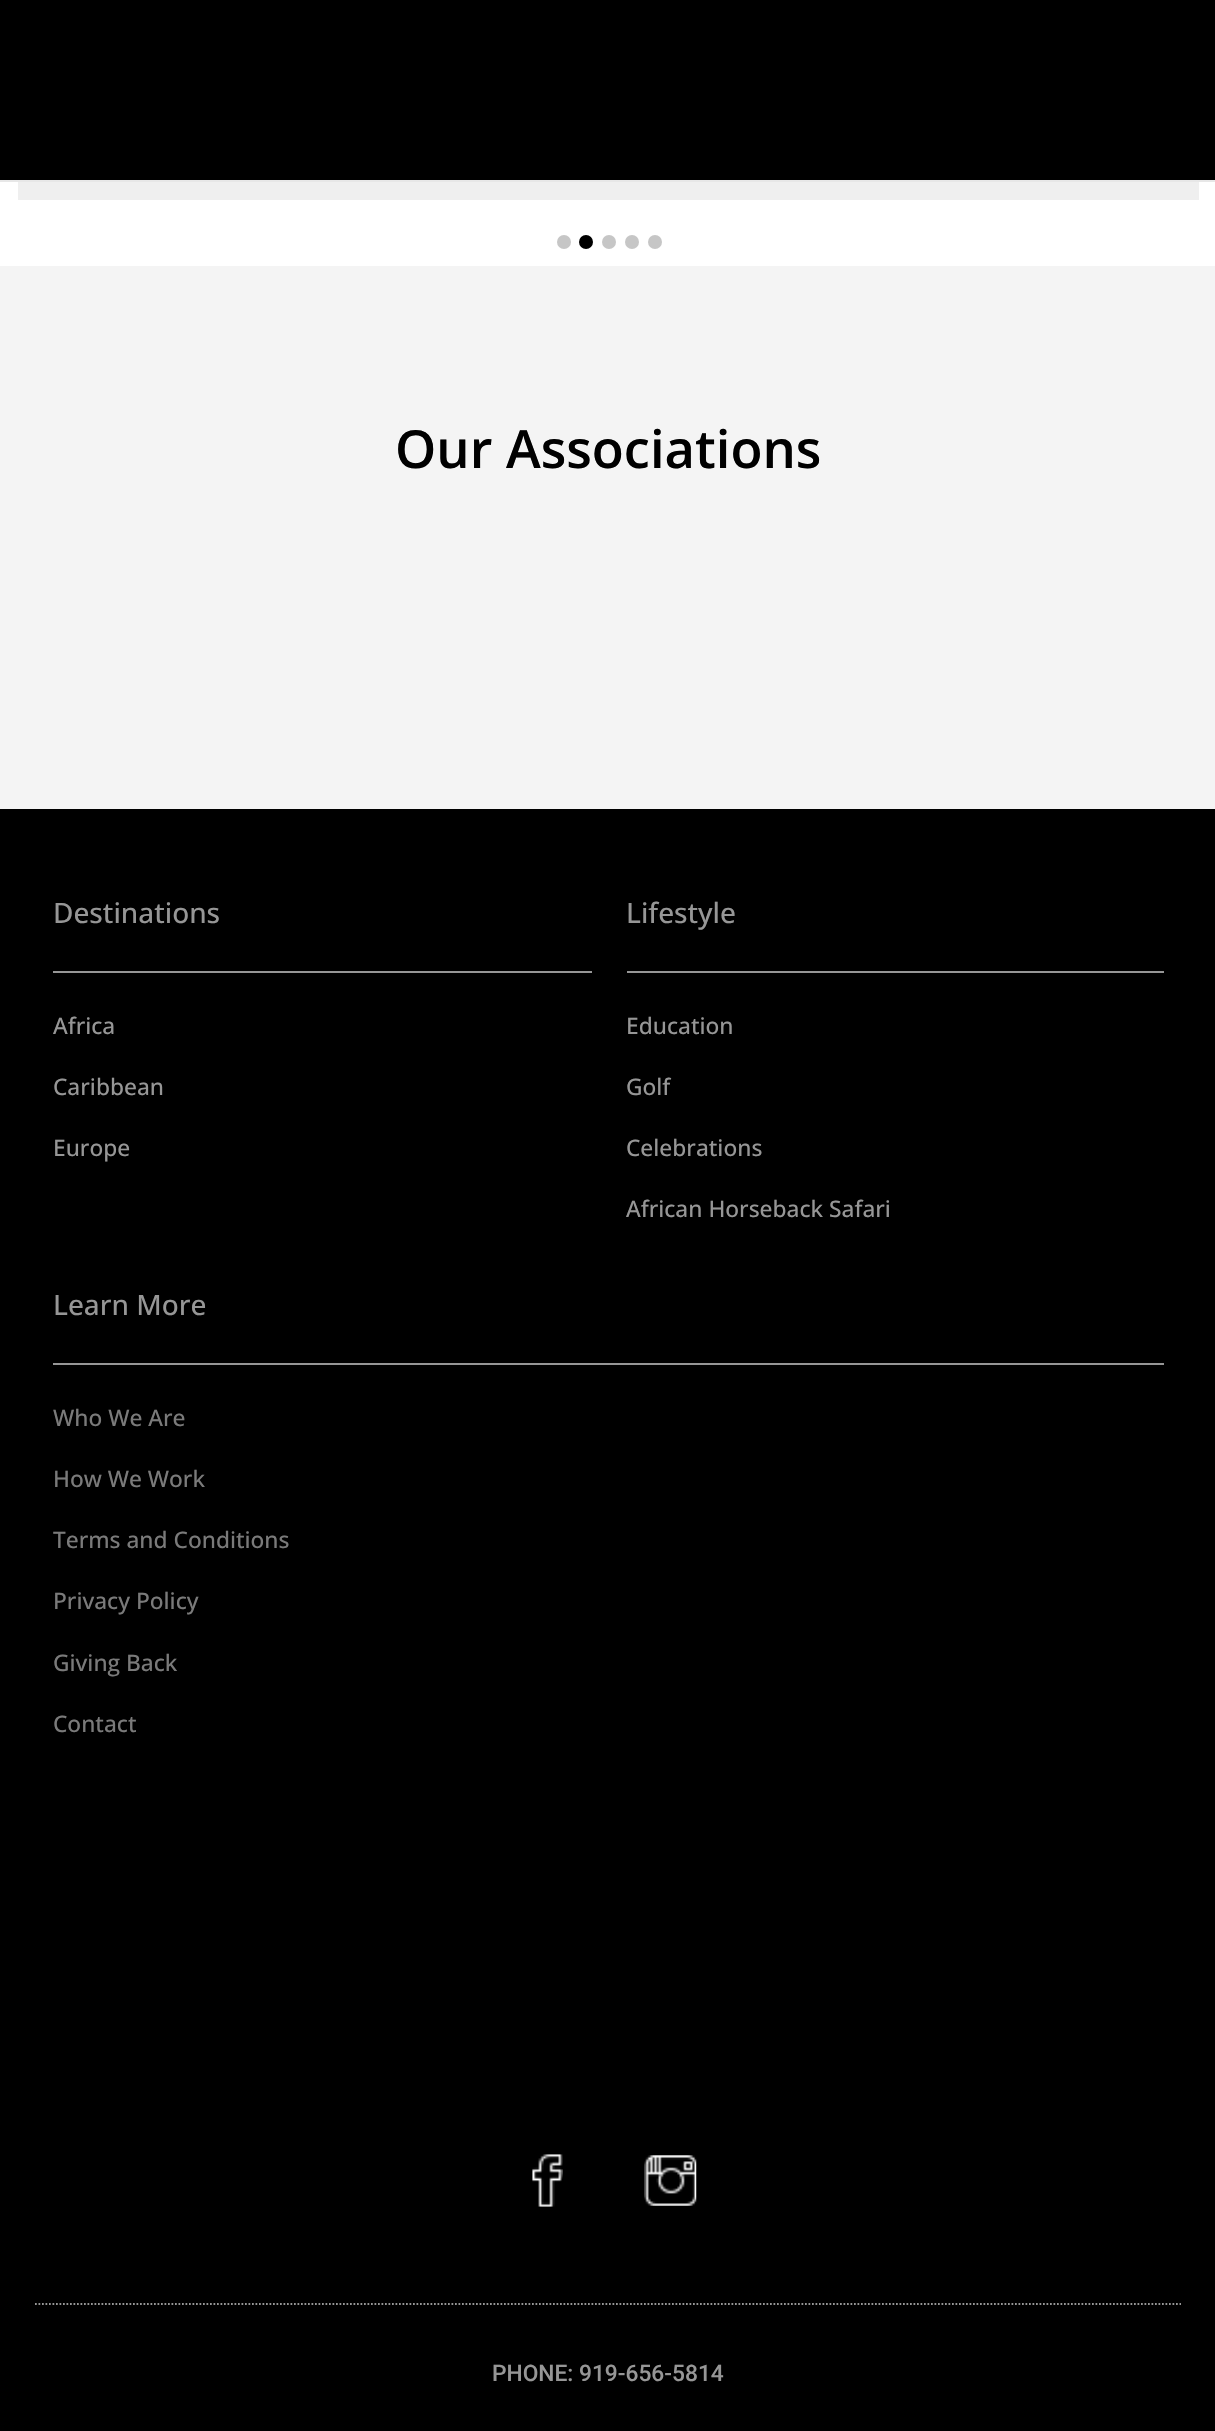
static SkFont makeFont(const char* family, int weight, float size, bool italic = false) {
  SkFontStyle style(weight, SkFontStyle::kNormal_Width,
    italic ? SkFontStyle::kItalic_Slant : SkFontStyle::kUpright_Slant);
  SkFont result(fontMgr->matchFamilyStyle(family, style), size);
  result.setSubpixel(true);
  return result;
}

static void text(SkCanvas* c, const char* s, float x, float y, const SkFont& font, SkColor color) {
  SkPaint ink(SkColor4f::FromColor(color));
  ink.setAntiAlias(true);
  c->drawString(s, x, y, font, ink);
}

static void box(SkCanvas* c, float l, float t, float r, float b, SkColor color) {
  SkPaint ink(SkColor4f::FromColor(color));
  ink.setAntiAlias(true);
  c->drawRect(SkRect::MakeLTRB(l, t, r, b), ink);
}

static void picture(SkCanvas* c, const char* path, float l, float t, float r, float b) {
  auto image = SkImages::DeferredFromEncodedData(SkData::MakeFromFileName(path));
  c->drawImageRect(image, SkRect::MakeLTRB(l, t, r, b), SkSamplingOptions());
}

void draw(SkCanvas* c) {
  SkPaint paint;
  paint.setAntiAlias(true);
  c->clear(0xffffffff);
  box(c, 0, 180, 1215, 182, 0xffe7e7e7);
  box(c, 0, 0, 1215, 180, 0xff000000);
  box(c, 18, 182, 1199, 200, 0xffefefef);
  paint.setColor(0xffc6c6c6);
  c->drawCircle(564, 242, 7, paint);
  paint.setColor(0xff000000);
  c->drawCircle(586, 242, 7, paint);
  paint.setColor(0xffc6c6c6);
  c->drawCircle(609, 242, 7, paint);
  c->drawCircle(632, 242, 7, paint);
  c->drawCircle(655, 242, 7, paint);
  box(c, 0, 266, 1215, 809, 0xfff4f4f4);
  SkFont face1 = makeFont("Open Sans", 600, 52.5f);
  text(c, "Our Associations", 395, 468, face1, 0xff000000);
  box(c, 0, 809, 1215, 2431, 0xff000000);
  SkFont face2 = makeFont("Open Sans", 500, 28);
  text(c, "Destinations", 53, 923, face2, 0xff969696);
  box(c, 53, 971, 592, 973, 0xff969696);
  SkFont face3 = makeFont("Open Sans", 500, 22.75f);
  text(c, "Africa", 53, 1034, face3, 0xff969696);
  text(c, "Caribbean", 53, 1095, face3, 0xff969696);
  text(c, "Europe", 53, 1156, face3, 0xff969696);
  text(c, "Lifestyle", 626, 923, face2, 0xff969696);
  box(c, 627, 971, 1164, 973, 0xff969696);
  text(c, "Education", 626, 1034, face3, 0xff969696);
  text(c, "Golf", 626, 1095, face3, 0xff969696);
  text(c, "Celebrations", 626, 1156, face3, 0xff969696);
  text(c, "African Horseback Safari", 626, 1217, face3, 0xff969696);
  text(c, "Learn More", 53, 1315, face2, 0xff969696);
  box(c, 53, 1363, 1164, 1365, 0xff969696);
  text(c, "Who We Are", 53, 1426, face3, 0xff7a7a7a);
  text(c, "How We Work", 53, 1487, face3, 0xff7a7a7a);
  text(c, "Terms and Conditions", 53, 1548, face3, 0xff7a7a7a);
  text(c, "Privacy Policy", 53, 1609, face3, 0xff7a7a7a);
  text(c, "Giving Back", 53, 1671, face3, 0xff7a7a7a);
  text(c, "Contact", 53, 1732, face3, 0xff7a7a7a);
  picture(c, "img_01.png", 532, 2154, 563, 2207);
  picture(c, "img_02.png", 644, 2155, 697, 2206);
  paint.setStyle(SkPaint::kStroke_Style);
  paint.setStrokeWidth(1.8f);
  paint.setColor(0xff969696);
  paint.setPathEffect(SkDashPathEffect::Make({{1.75f, 1.75f}}, 0));
  c->drawPath(SkPathBuilder().moveTo(35, 2304).lineTo(1181, 2304).detach(), paint);
  paint.setPathEffect(nullptr);
  SkFont face4 = makeFont("Roboto", 500, 22.75f);
  text(c, "PHONE: 919-656-5814", 492, 2381, face4, 0xff969696);
}
